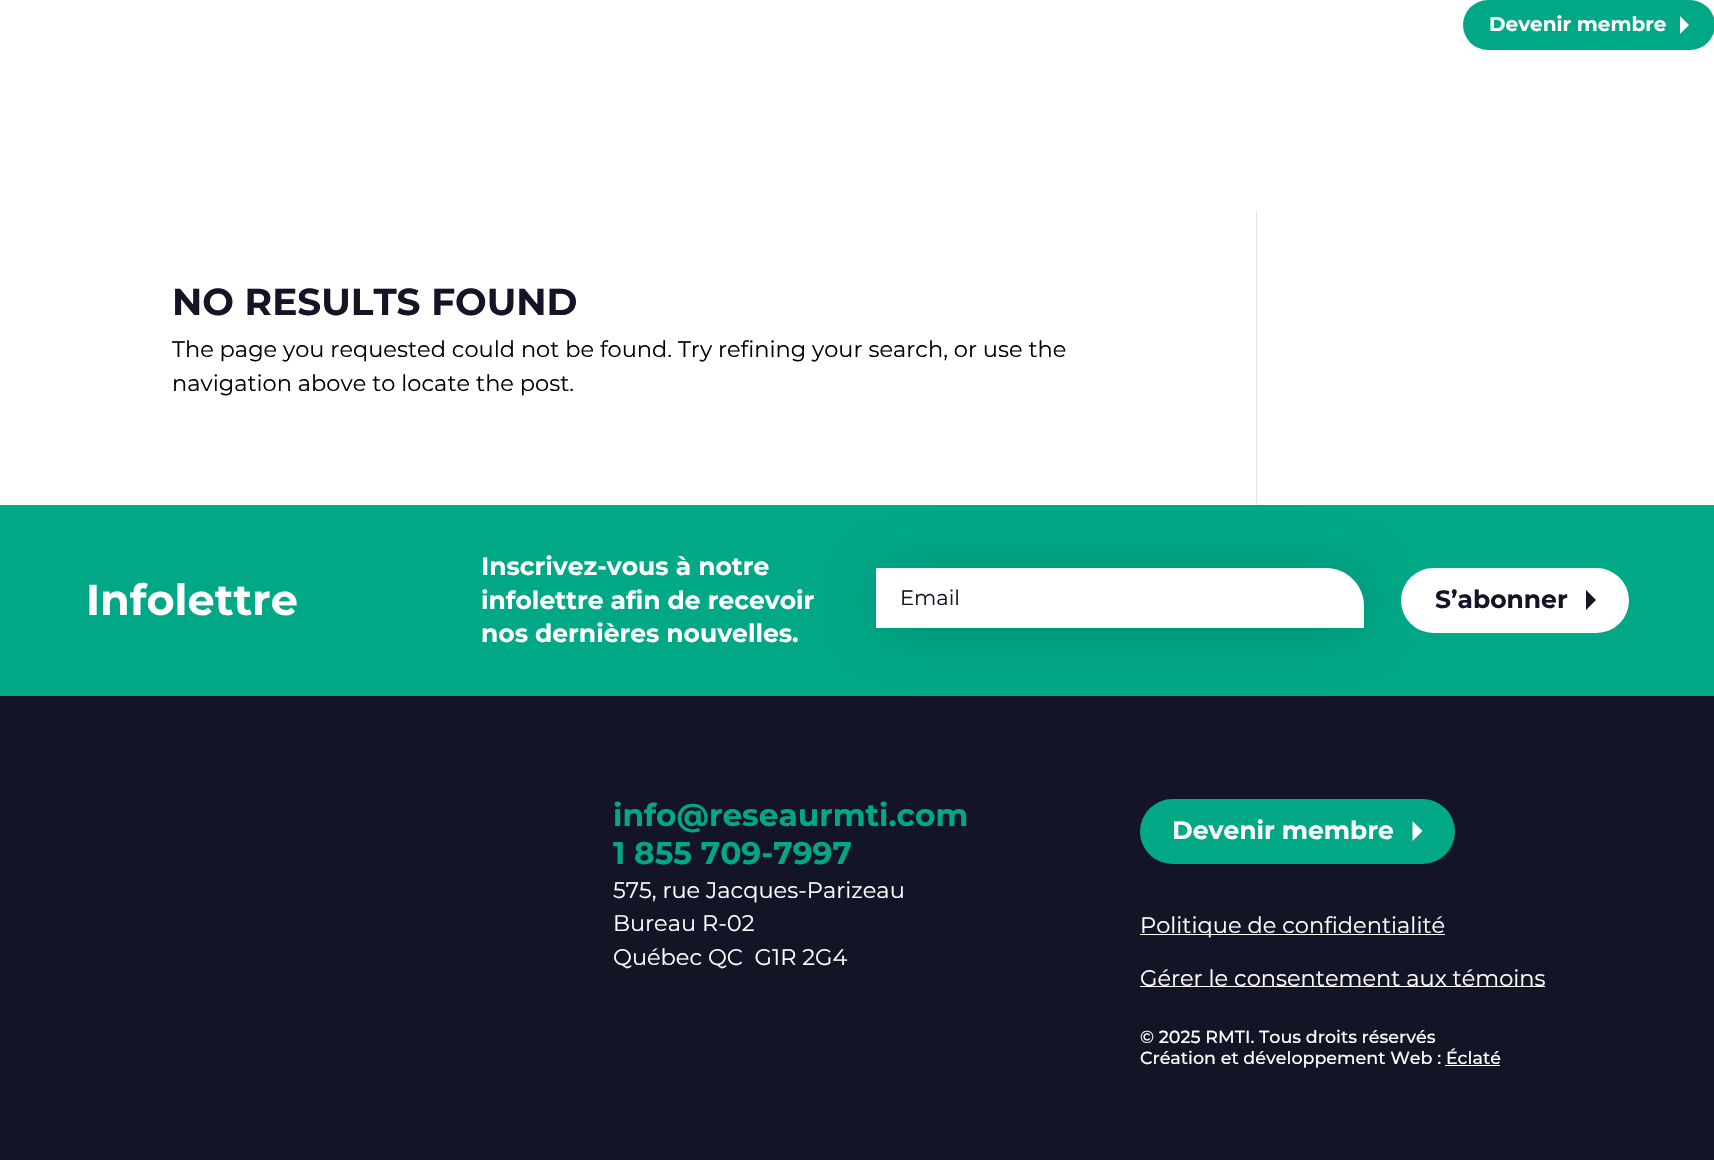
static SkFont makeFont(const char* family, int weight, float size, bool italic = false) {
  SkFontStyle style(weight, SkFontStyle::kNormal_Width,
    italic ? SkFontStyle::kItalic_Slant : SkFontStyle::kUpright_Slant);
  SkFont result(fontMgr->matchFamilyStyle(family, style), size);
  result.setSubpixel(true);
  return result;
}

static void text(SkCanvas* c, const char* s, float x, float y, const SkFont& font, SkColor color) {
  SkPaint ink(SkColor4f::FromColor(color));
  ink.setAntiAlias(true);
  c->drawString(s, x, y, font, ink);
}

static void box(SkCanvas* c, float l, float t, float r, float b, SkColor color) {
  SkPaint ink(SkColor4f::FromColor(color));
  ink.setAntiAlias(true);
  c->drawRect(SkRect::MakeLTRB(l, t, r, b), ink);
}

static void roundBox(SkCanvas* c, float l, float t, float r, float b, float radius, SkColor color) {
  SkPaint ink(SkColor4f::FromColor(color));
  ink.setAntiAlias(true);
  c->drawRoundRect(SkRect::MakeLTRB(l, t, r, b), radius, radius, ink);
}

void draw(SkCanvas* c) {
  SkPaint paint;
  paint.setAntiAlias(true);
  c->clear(0xffffffff);
  roundBox(c, 1463, 0, 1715, 50, 25, 0xff00a886);
  SkFont face1 = makeFont("Montserrat", 700, 20);
  text(c, "Devenir membre", 1489, 31, face1, 0xffffffff);
  paint.setColor(0xffffffff);
  c->drawPath(SkPathBuilder().moveTo(1680, 34).lineTo(1680, 16).lineTo(1689, 25).close().detach(), paint);
  SkFont face2 = makeFont("Montserrat", 700, 37.5f);
  text(c, "NO RESULTS FOUND", 172, 315, face2, 0xff141427);
  SkFont face3 = makeFont("Montserrat", 400, 22.5f);
  text(c, "The page you requested could not be found. Try refining your search, or use the", 172, 357, face3, 0xff000000);
  text(c, "navigation above to locate the post.", 172, 391, face3, 0xff000000);
  box(c, 1256, 211, 1257, 505, 0xffe2e2e2);
  box(c, 0, 505, 1714, 696, 0xff00a886);
  SkFont face4 = makeFont("Montserrat", 700, 43);
  text(c, "Infolettre", 86, 615, face4, 0xffffffff);
  SkFont face5 = makeFont("Montserrat", 700, 25);
  text(c, "Inscrivez-vous à notre", 481, 575, face5, 0xffffffff);
  text(c, "infolettre afin de recevoir", 481, 609, face5, 0xffffffff);
  text(c, "nos dernières nouvelles.", 481, 642, face5, 0xffffffff);
  box(c, 0, 696, 1714, 1160, 0xff141427);
  paint.setColor(0x29000000);
  paint.setMaskFilter(SkMaskFilter::MakeBlur(kNormal_SkBlurStyle, 25));
  c->drawRoundRect(SkRect::MakeLTRB(876, 571, 1364, 631), 38, 38, paint);
  paint.setMaskFilter(nullptr);
  paint.setColor(0xffffffff);
  c->drawPath(SkPathBuilder().moveTo(876, 568).lineTo(1326, 568).cubicTo(1347, 568, 1364, 585, 1364, 606).lineTo(1364, 628).lineTo(876, 628).close().detach(), paint);
  SkFont face6 = makeFont("Montserrat", 400, 21);
  text(c, "Email", 900, 605, face6, 0xff141427);
  roundBox(c, 1401, 568, 1629, 633, 32.5f, 0xffffffff);
  text(c, "S’abonner", 1435, 608, face5, 0xff141427);
  paint.setColor(0xff141427);
  c->drawPath(SkPathBuilder().moveTo(1586, 610).lineTo(1586, 590).lineTo(1596, 600).close().detach(), paint);
  SkFont face7 = makeFont("Montserrat", 700, 31.25f);
  text(c, "info@reseaurmti.com", 613, 826, face7, 0xff00a886);
  text(c, "1 855 709-7997", 613, 864, face7, 0xff00a886);
  text(c, "575, rue Jacques-Parizeau", 613, 898, face3, 0xffffffff);
  text(c, "Bureau R-02", 613, 931, face3, 0xffffffff);
  text(c, "Québec QC  G1R 2G4", 613, 965, face3, 0xffffffff);
  roundBox(c, 1140, 799, 1455, 864, 32.5f, 0xff00a886);
  text(c, "Devenir membre", 1172, 839, face5, 0xffffffff);
  paint.setColor(0xffffffff);
  c->drawPath(SkPathBuilder().moveTo(1412.5f, 841).lineTo(1412.5f, 821).lineTo(1422.5f, 831).close().detach(), paint);
  box(c, 1140, 934, 1445, 935, 0xffffffff);
  text(c, "Politique de confidentialité", 1140, 933, face3, 0xffffffff);
  box(c, 1140, 986, 1545, 987, 0xffffffff);
  text(c, "Gérer le consentement aux témoins", 1140, 986, face3, 0xffffffff);
  SkFont face8 = makeFont("Montserrat", 500, 17.5f);
  text(c, "© 2025 RMTI. Tous droits réservés", 1140, 1043, face8, 0xffffffff);
  text(c, "Création et développement Web : Éclaté", 1140, 1064, face8, 0xffffffff);
  box(c, 1445, 1065, 1500, 1066, 0xffffffff);
}
